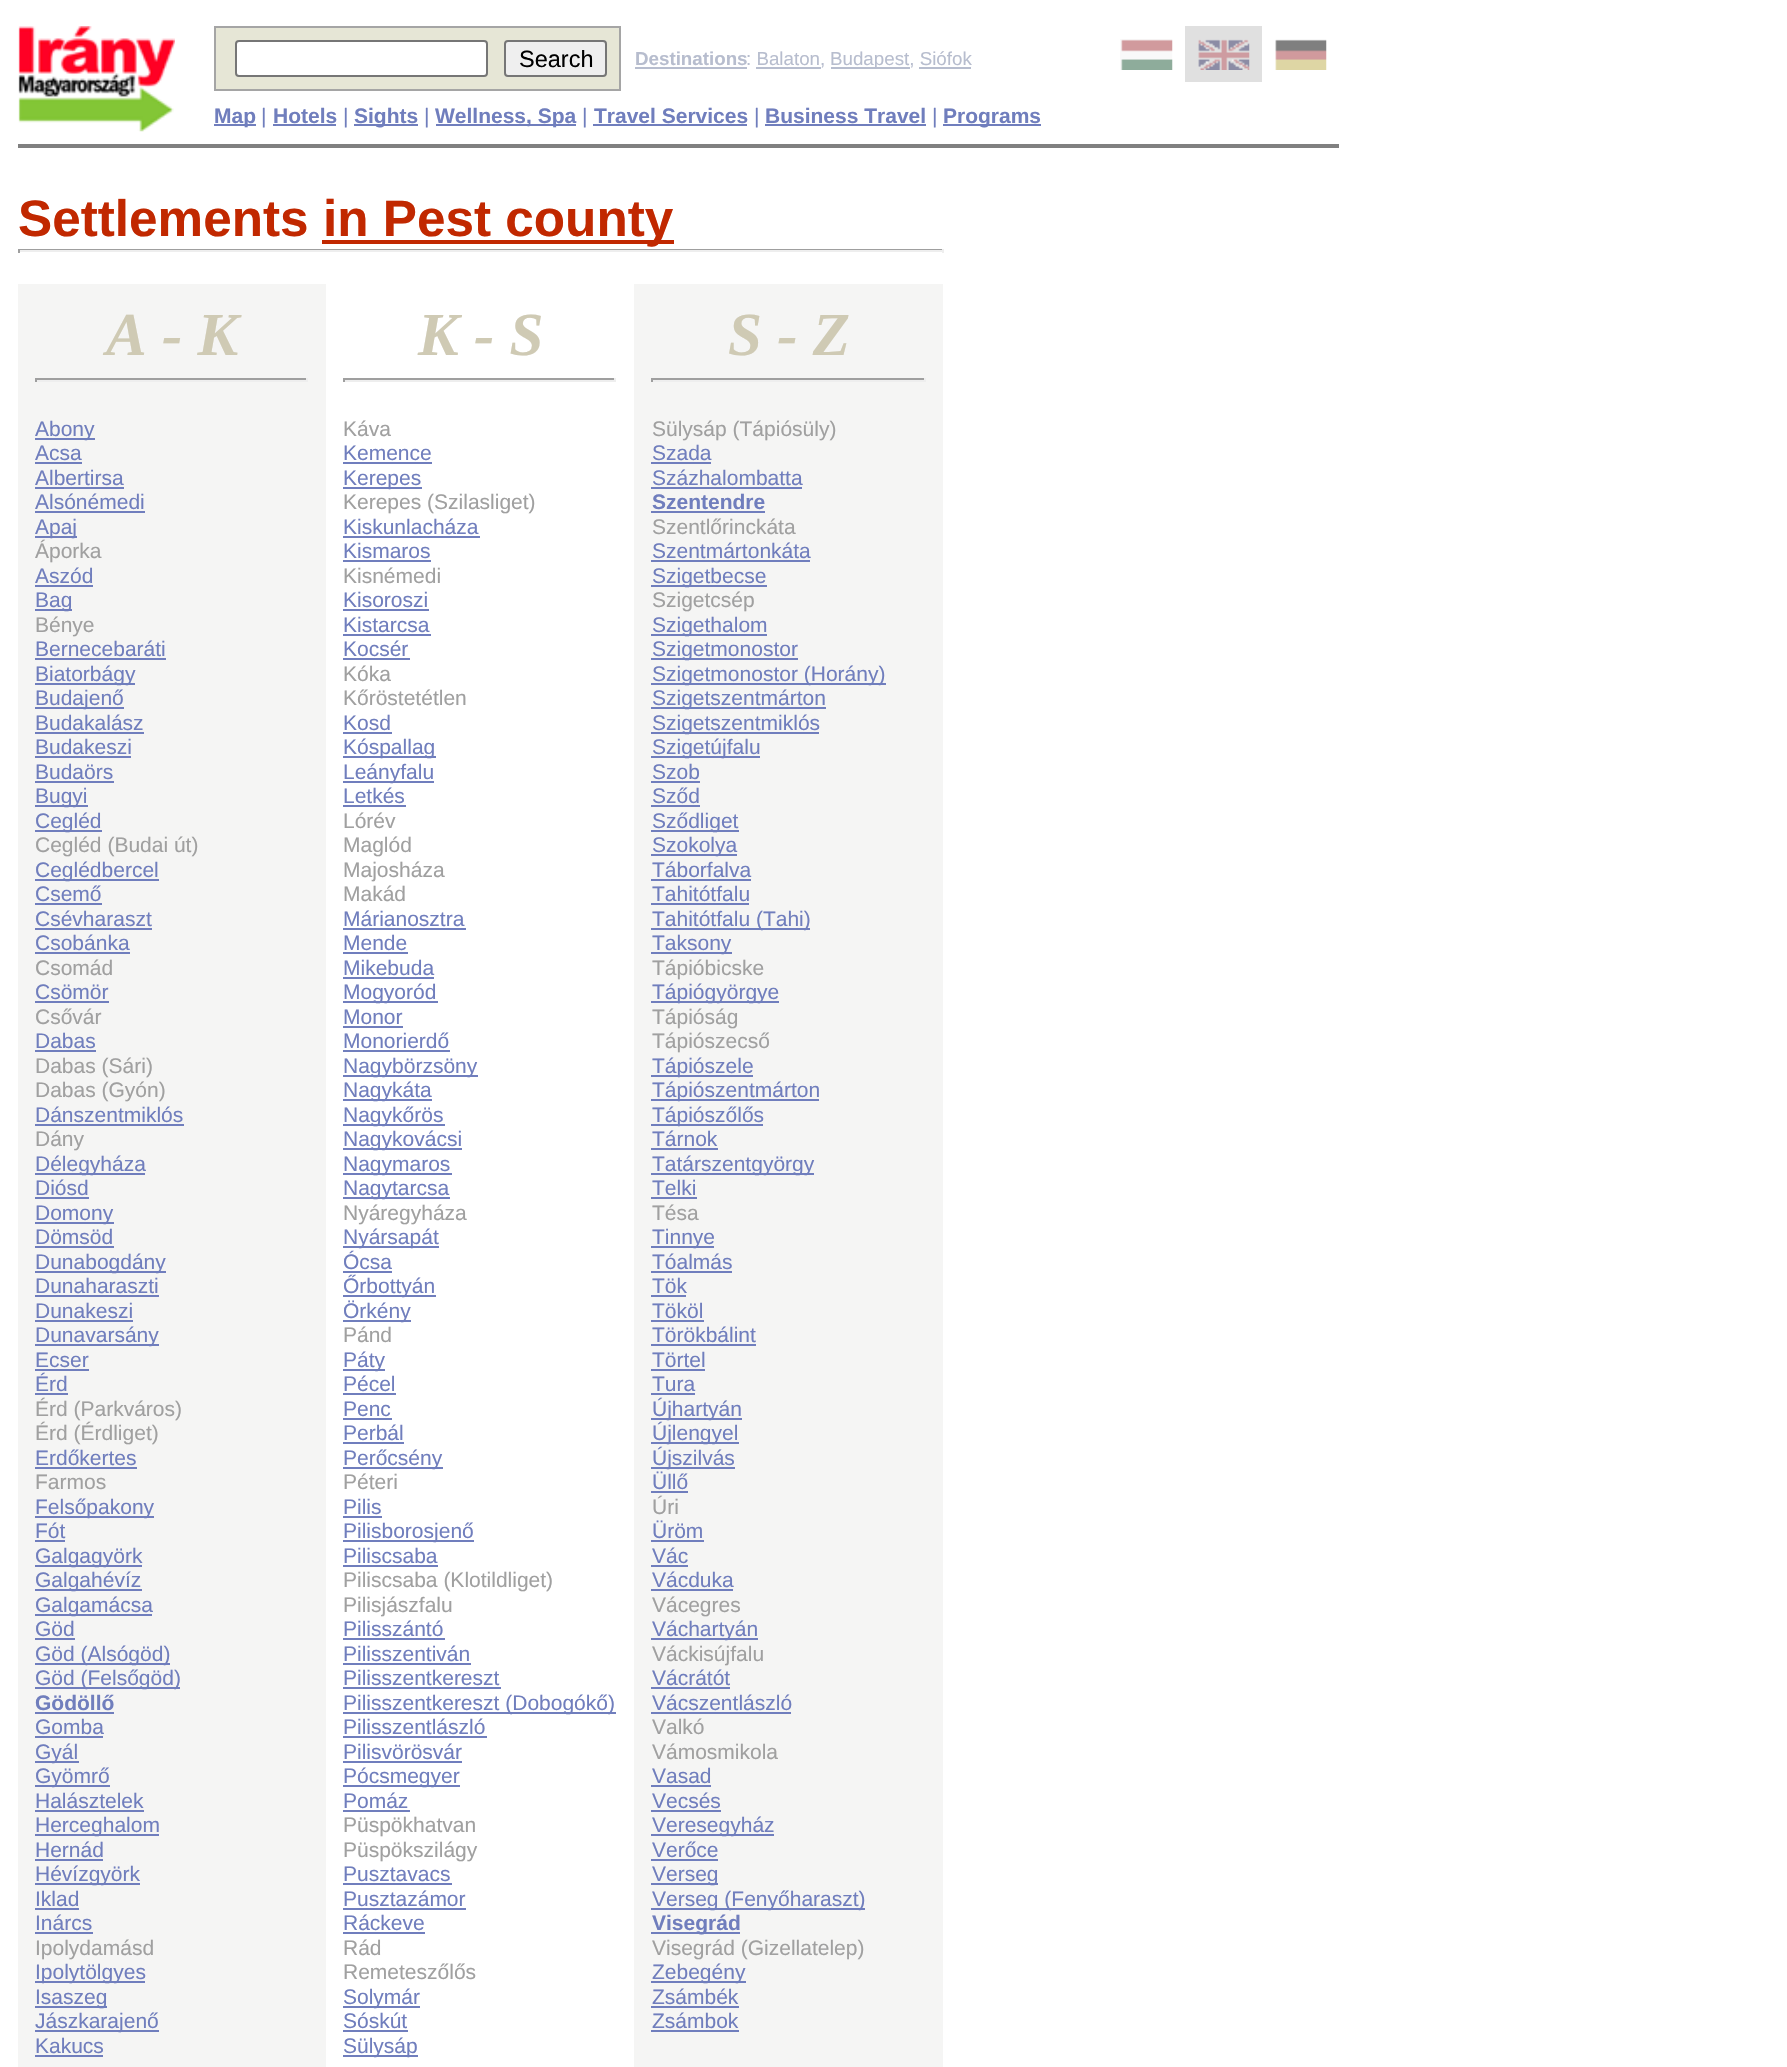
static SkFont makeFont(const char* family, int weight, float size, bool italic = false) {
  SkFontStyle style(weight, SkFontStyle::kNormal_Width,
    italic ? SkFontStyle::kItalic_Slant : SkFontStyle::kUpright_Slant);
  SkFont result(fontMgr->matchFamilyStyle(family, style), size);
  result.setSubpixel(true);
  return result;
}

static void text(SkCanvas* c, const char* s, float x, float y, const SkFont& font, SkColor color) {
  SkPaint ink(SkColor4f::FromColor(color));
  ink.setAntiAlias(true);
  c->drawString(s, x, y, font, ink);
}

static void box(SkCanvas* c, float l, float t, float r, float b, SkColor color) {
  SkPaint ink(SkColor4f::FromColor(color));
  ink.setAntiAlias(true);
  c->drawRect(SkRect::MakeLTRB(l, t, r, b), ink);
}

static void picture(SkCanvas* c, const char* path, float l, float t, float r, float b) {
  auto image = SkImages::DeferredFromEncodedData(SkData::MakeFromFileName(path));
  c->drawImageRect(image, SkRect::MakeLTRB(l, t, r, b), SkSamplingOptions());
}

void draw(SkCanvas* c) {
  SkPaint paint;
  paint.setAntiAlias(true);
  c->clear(0xffffffff);
  picture(c, "img_01.png", 18, 26, 175, 132);
  paint.setColor(0xffe6e6d6);
  c->drawRect(SkRect::MakeLTRB(215, 27, 620, 90), paint);
  paint.setStyle(SkPaint::kStroke_Style);
  paint.setStrokeWidth(2);
  paint.setColor(0xffa5a5a5);
  c->drawRect(SkRect::MakeLTRB(215, 27, 620, 90), paint);
  paint.setStyle(SkPaint::kFill_Style);
  paint.setColor(0xffffffff);
  c->drawRoundRect(SkRect::MakeLTRB(236, 41, 487, 76), 3, 3, paint);
  paint.setStyle(SkPaint::kStroke_Style);
  paint.setColor(0xff767676);
  c->drawRoundRect(SkRect::MakeLTRB(236, 41, 487, 76), 3, 3, paint);
  paint.setStyle(SkPaint::kFill_Style);
  paint.setColor(0xffefefef);
  c->drawRoundRect(SkRect::MakeLTRB(505, 41, 606, 76), 3, 3, paint);
  paint.setStyle(SkPaint::kStroke_Style);
  paint.setColor(0xff767676);
  c->drawRoundRect(SkRect::MakeLTRB(505, 41, 606, 76), 3, 3, paint);
  SkFont face1 = makeFont("Liberation Sans", 400, 23.5f);
  text(c, "Search", 519, 67, face1, 0xff000000);
  SkFont face2 = makeFont("Liberation Sans", 700, 18.75f);
  text(c, "Destinations", 635, 65, face2, 0xffb7bdce);
  SkFont face3 = makeFont("Liberation Sans", 400, 18.75f);
  text(c, ": Balaton,", 746, 65, face3, 0xffb7bdce);
  box(c, 635, 67, 747, 69, 0xffb7bdce);
  box(c, 756, 67, 821, 69, 0xffb7bdce);
  box(c, 831, 67, 910, 69, 0xffb7bdce);
  text(c, "Budapest, Siófok", 830, 65, face3, 0xffb7bdce);
  box(c, 919, 67, 971, 69, 0xffb7bdce);
  picture(c, "img_02.png", 1120, 39, 1173, 70);
  box(c, 1185, 26, 1262, 82, 0xffe0e0e0);
  picture(c, "img_03.png", 1198, 39, 1250, 70);
  picture(c, "img_04.png", 1275, 39, 1327, 70);
  box(c, 214, 124, 256, 126, 0xff707ebd);
  SkFont face4 = makeFont("Liberation Sans", 700, 21);
  text(c, "Map", 214, 123, face4, 0xff707ebd);
  SkFont face5 = makeFont("Liberation Sans", 400, 21);
  text(c, "|", 261, 123, face5, 0xff707ebd);
  text(c, "Hotels", 273, 123, face4, 0xff707ebd);
  box(c, 273, 124, 336, 126, 0xff707ebd);
  text(c, "|", 343, 123, face5, 0xff707ebd);
  box(c, 354, 124, 418, 126, 0xff707ebd);
  text(c, "Sights", 354, 123, face4, 0xff707ebd);
  text(c, "|", 424, 123, face5, 0xff707ebd);
  box(c, 436, 124, 576, 126, 0xff707ebd);
  text(c, "Wellness, Spa", 435, 123, face4, 0xff707ebd);
  text(c, "|", 582, 123, face5, 0xff707ebd);
  text(c, "Travel Services", 594, 123, face4, 0xff707ebd);
  box(c, 593, 124, 747, 126, 0xff707ebd);
  text(c, "|", 754, 123, face5, 0xff707ebd);
  text(c, "Business Travel", 765, 123, face4, 0xff707ebd);
  box(c, 765, 124, 926, 126, 0xff707ebd);
  text(c, "|", 932, 123, face5, 0xff707ebd);
  box(c, 943, 124, 1041, 126, 0xff707ebd);
  text(c, "Programs", 943, 123, face4, 0xff707ebd);
  box(c, 18, 144, 1339, 148, 0xff808080);
  SkFont face6 = makeFont("Liberation Sans", 700, 51.25f);
  text(c, "Settlements", 18, 236, face6, 0xffc12800);
  box(c, 322, 240, 674, 244, 0xffc12800);
  text(c, "in Pest county", 323, 236, face6, 0xffc12800);
  box(c, 18, 249, 943, 250, 0xff9f9f9f);
  box(c, 942, 249, 944, 253, 0xffeeeeee);
  box(c, 18, 250, 943, 252, 0xffeeeeee);
  box(c, 18, 249, 20, 253, 0xff9f9f9f);
  box(c, 18, 284, 326, 2067, 0xfff5f5f4);
  SkFont face7 = makeFont("Liberation Serif", 700, 61, true);
  text(c, "A - K", 106, 355, face7, 0xffcfcab4);
  box(c, 35, 378, 308, 380, 0xff9f9f9f);
  box(c, 306, 378, 308, 382, 0xffeeeeee);
  box(c, 35, 380, 308, 382, 0xffeeeeee);
  box(c, 35, 378, 37, 382, 0xff9f9f9f);
  text(c, "K - S", 418, 355, face7, 0xffcfcab4);
  box(c, 343, 378, 616, 380, 0xff9f9f9f);
  box(c, 614, 378, 616, 382, 0xffeeeeee);
  box(c, 343, 380, 616, 382, 0xffeeeeee);
  box(c, 343, 378, 345, 382, 0xff9f9f9f);
  box(c, 634, 284, 943, 2067, 0xfff5f5f4);
  text(c, "S - Z", 728, 355, face7, 0xffcfcab4);
  box(c, 651, 378, 926, 380, 0xff9f9f9f);
  box(c, 924, 378, 926, 382, 0xffeeeeee);
  box(c, 651, 380, 926, 382, 0xffeeeeee);
  box(c, 651, 378, 653, 382, 0xff9f9f9f);
  box(c, 35, 438, 95, 440, 0xff707ebd);
  text(c, "Abony", 35, 436, face5, 0xff707ebd);
  text(c, "Acsa", 35, 460, face5, 0xff707ebd);
  box(c, 35, 462, 82, 464, 0xff707ebd);
  text(c, "Albertirsa", 35, 485, face5, 0xff707ebd);
  box(c, 35, 487, 124, 489, 0xff707ebd);
  text(c, "Alsónémedi", 35, 509, face5, 0xff707ebd);
  box(c, 35, 511, 145, 513, 0xff707ebd);
  box(c, 35, 536, 77, 538, 0xff707ebd);
  text(c, "Apaj", 35, 534, face5, 0xff707ebd);
  text(c, "Áporka", 35, 558, face5, 0xffa0a0a0);
  text(c, "Aszód", 35, 583, face5, 0xff707ebd);
  box(c, 35, 585, 93, 587, 0xff707ebd);
  box(c, 35, 609, 72, 611, 0xff707ebd);
  text(c, "Bag", 35, 607, face5, 0xff707ebd);
  text(c, "Bénye", 35, 632, face5, 0xffa0a0a0);
  text(c, "Bernecebaráti", 35, 656, face5, 0xff707ebd);
  box(c, 35, 658, 166, 660, 0xff707ebd);
  box(c, 35, 683, 135, 685, 0xff707ebd);
  text(c, "Biatorbágy", 35, 681, face5, 0xff707ebd);
  box(c, 35, 707, 124, 709, 0xff707ebd);
  text(c, "Budajenő", 35, 705, face5, 0xff707ebd);
  text(c, "Budakalász", 35, 730, face5, 0xff707ebd);
  box(c, 35, 732, 144, 734, 0xff707ebd);
  text(c, "Budakeszi", 35, 754, face5, 0xff707ebd);
  box(c, 35, 756, 131, 758, 0xff707ebd);
  text(c, "Budaörs", 35, 779, face5, 0xff707ebd);
  box(c, 35, 781, 114, 783, 0xff707ebd);
  box(c, 35, 805, 88, 807, 0xff707ebd);
  text(c, "Bugyi", 35, 803, face5, 0xff707ebd);
  box(c, 35, 830, 102, 832, 0xff707ebd);
  text(c, "Cegléd", 35, 828, face5, 0xff707ebd);
  text(c, "Cegléd (Budai út)", 35, 852, face5, 0xffa0a0a0);
  box(c, 35, 879, 159, 881, 0xff707ebd);
  text(c, "Ceglédbercel", 35, 877, face5, 0xff707ebd);
  text(c, "Csemő", 35, 901, face5, 0xff707ebd);
  box(c, 35, 903, 102, 905, 0xff707ebd);
  text(c, "Csévharaszt", 35, 926, face5, 0xff707ebd);
  box(c, 35, 928, 152, 930, 0xff707ebd);
  text(c, "Csobánka", 35, 950, face5, 0xff707ebd);
  box(c, 35, 952, 130, 954, 0xff707ebd);
  text(c, "Csomád", 35, 975, face5, 0xffa0a0a0);
  text(c, "Csömör", 35, 999, face5, 0xff707ebd);
  box(c, 35, 1001, 109, 1003, 0xff707ebd);
  text(c, "Csővár", 35, 1024, face5, 0xffa0a0a0);
  text(c, "Dabas", 35, 1048, face5, 0xff707ebd);
  box(c, 35, 1050, 96, 1052, 0xff707ebd);
  text(c, "Dabas (Sári)", 35, 1073, face5, 0xffa0a0a0);
  text(c, "Dabas (Gyón)", 35, 1097, face5, 0xffa0a0a0);
  text(c, "Dánszentmiklós", 35, 1122, face5, 0xff707ebd);
  box(c, 35, 1124, 184, 1126, 0xff707ebd);
  text(c, "Dány", 35, 1146, face5, 0xffa0a0a0);
  box(c, 35, 1173, 145, 1175, 0xff707ebd);
  text(c, "Délegyháza", 35, 1171, face5, 0xff707ebd);
  text(c, "Diósd", 35, 1195, face5, 0xff707ebd);
  box(c, 35, 1197, 89, 1199, 0xff707ebd);
  box(c, 35, 1222, 114, 1224, 0xff707ebd);
  text(c, "Domony", 35, 1220, face5, 0xff707ebd);
  text(c, "Dömsöd", 35, 1244, face5, 0xff707ebd);
  box(c, 35, 1246, 114, 1248, 0xff707ebd);
  box(c, 35, 1271, 166, 1273, 0xff707ebd);
  text(c, "Dunabogdány", 35, 1269, face5, 0xff707ebd);
  text(c, "Dunaharaszti", 35, 1293, face5, 0xff707ebd);
  box(c, 35, 1295, 159, 1297, 0xff707ebd);
  text(c, "Dunakeszi", 35, 1318, face5, 0xff707ebd);
  box(c, 35, 1320, 133, 1322, 0xff707ebd);
  box(c, 35, 1344, 159, 1346, 0xff707ebd);
  text(c, "Dunavarsány", 35, 1342, face5, 0xff707ebd);
  text(c, "Ecser", 35, 1367, face5, 0xff707ebd);
  box(c, 35, 1369, 89, 1371, 0xff707ebd);
  text(c, "Érd", 35, 1391, face5, 0xff707ebd);
  box(c, 35, 1393, 68, 1395, 0xff707ebd);
  text(c, "Érd (Parkváros)", 35, 1416, face5, 0xffa0a0a0);
  text(c, "Érd (Érdliget)", 35, 1440, face5, 0xffa0a0a0);
  text(c, "Erdőkertes", 35, 1465, face5, 0xff707ebd);
  box(c, 35, 1467, 137, 1469, 0xff707ebd);
  text(c, "Farmos", 35, 1489, face5, 0xffa0a0a0);
  box(c, 35, 1516, 154, 1518, 0xff707ebd);
  text(c, "Felsőpakony", 35, 1514, face5, 0xff707ebd);
  text(c, "Fót", 35, 1538, face5, 0xff707ebd);
  box(c, 35, 1540, 65, 1542, 0xff707ebd);
  box(c, 35, 1565, 142, 1567, 0xff707ebd);
  text(c, "Galgagyörk", 35, 1563, face5, 0xff707ebd);
  box(c, 35, 1589, 142, 1591, 0xff707ebd);
  text(c, "Galgahévíz", 35, 1587, face5, 0xff707ebd);
  box(c, 35, 1614, 152, 1616, 0xff707ebd);
  text(c, "Galgamácsa", 35, 1612, face5, 0xff707ebd);
  text(c, "Göd", 35, 1636, face5, 0xff707ebd);
  box(c, 35, 1638, 75, 1640, 0xff707ebd);
  box(c, 35, 1663, 170, 1665, 0xff707ebd);
  text(c, "Göd (Alsógöd)", 35, 1661, face5, 0xff707ebd);
  box(c, 35, 1687, 180, 1689, 0xff707ebd);
  text(c, "Göd (Felsőgöd)", 35, 1685, face5, 0xff707ebd);
  text(c, "Gödöllő", 35, 1710, face4, 0xff707ebd);
  box(c, 35, 1712, 114, 1714, 0xff707ebd);
  text(c, "Gomba", 35, 1734, face5, 0xff707ebd);
  box(c, 35, 1736, 103, 1738, 0xff707ebd);
  box(c, 35, 1761, 79, 1763, 0xff707ebd);
  text(c, "Gyál", 35, 1759, face5, 0xff707ebd);
  box(c, 35, 1785, 110, 1787, 0xff707ebd);
  text(c, "Gyömrő", 35, 1783, face5, 0xff707ebd);
  text(c, "Halásztelek", 35, 1808, face5, 0xff707ebd);
  box(c, 35, 1810, 144, 1812, 0xff707ebd);
  box(c, 35, 1834, 159, 1836, 0xff707ebd);
  text(c, "Herceghalom", 35, 1832, face5, 0xff707ebd);
  text(c, "Hernád", 35, 1857, face5, 0xff707ebd);
  box(c, 35, 1859, 103, 1861, 0xff707ebd);
  box(c, 35, 1883, 140, 1885, 0xff707ebd);
  text(c, "Hévízgyörk", 35, 1881, face5, 0xff707ebd);
  text(c, "Iklad", 35, 1906, face5, 0xff707ebd);
  box(c, 35, 1908, 79, 1910, 0xff707ebd);
  text(c, "Inárcs", 35, 1930, face5, 0xff707ebd);
  box(c, 35, 1932, 93, 1934, 0xff707ebd);
  text(c, "Ipolydamásd", 35, 1955, face5, 0xffa0a0a0);
  box(c, 35, 1981, 145, 1983, 0xff707ebd);
  text(c, "Ipolytölgyes", 35, 1979, face5, 0xff707ebd);
  box(c, 35, 2006, 107, 2008, 0xff707ebd);
  text(c, "Isaszeg", 35, 2004, face5, 0xff707ebd);
  box(c, 35, 2030, 159, 2032, 0xff707ebd);
  text(c, "Jászkarajenő", 35, 2028, face5, 0xff707ebd);
  text(c, "Kakucs", 35, 2053, face5, 0xff707ebd);
  box(c, 35, 2055, 103, 2057, 0xff707ebd);
  text(c, "Káva", 343, 436, face5, 0xffa0a0a0);
  text(c, "Kemence", 343, 460, face5, 0xff707ebd);
  box(c, 343, 462, 432, 464, 0xff707ebd);
  box(c, 343, 487, 422, 489, 0xff707ebd);
  text(c, "Kerepes", 343, 485, face5, 0xff707ebd);
  text(c, "Kerepes (Szilasliget)", 343, 509, face5, 0xffa0a0a0);
  text(c, "Kiskunlacháza", 343, 534, face5, 0xff707ebd);
  box(c, 343, 536, 480, 538, 0xff707ebd);
  text(c, "Kismaros", 343, 558, face5, 0xff707ebd);
  box(c, 343, 560, 431, 562, 0xff707ebd);
  text(c, "Kisnémedi", 343, 583, face5, 0xffa0a0a0);
  text(c, "Kisoroszi", 343, 607, face5, 0xff707ebd);
  box(c, 343, 609, 429, 611, 0xff707ebd);
  text(c, "Kistarcsa", 343, 632, face5, 0xff707ebd);
  box(c, 343, 634, 431, 636, 0xff707ebd);
  text(c, "Kocsér", 343, 656, face5, 0xff707ebd);
  box(c, 343, 658, 410, 660, 0xff707ebd);
  text(c, "Kóka", 343, 681, face5, 0xffa0a0a0);
  text(c, "Kőröstetétlen", 343, 705, face5, 0xffa0a0a0);
  text(c, "Kosd", 343, 730, face5, 0xff707ebd);
  box(c, 343, 732, 392, 734, 0xff707ebd);
  box(c, 343, 756, 436, 758, 0xff707ebd);
  text(c, "Kóspallag", 343, 754, face5, 0xff707ebd);
  box(c, 343, 781, 434, 783, 0xff707ebd);
  text(c, "Leányfalu", 343, 779, face5, 0xff707ebd);
  text(c, "Letkés", 343, 803, face5, 0xff707ebd);
  box(c, 343, 805, 406, 807, 0xff707ebd);
  text(c, "Lórév", 343, 828, face5, 0xffa0a0a0);
  text(c, "Maglód", 343, 852, face5, 0xffa0a0a0);
  text(c, "Majosháza", 343, 877, face5, 0xffa0a0a0);
  text(c, "Makád", 343, 901, face5, 0xffa0a0a0);
  text(c, "Márianosztra", 343, 926, face5, 0xff707ebd);
  box(c, 343, 928, 466, 930, 0xff707ebd);
  text(c, "Mende", 343, 950, face5, 0xff707ebd);
  box(c, 343, 952, 408, 954, 0xff707ebd);
  text(c, "Mikebuda", 343, 975, face5, 0xff707ebd);
  box(c, 343, 977, 434, 979, 0xff707ebd);
  box(c, 343, 1001, 438, 1003, 0xff707ebd);
  text(c, "Mogyoród", 343, 999, face5, 0xff707ebd);
  text(c, "Monor", 343, 1024, face5, 0xff707ebd);
  box(c, 343, 1026, 403, 1028, 0xff707ebd);
  text(c, "Monorierdő", 343, 1048, face5, 0xff707ebd);
  box(c, 343, 1050, 450, 1052, 0xff707ebd);
  box(c, 343, 1075, 478, 1077, 0xff707ebd);
  text(c, "Nagybörzsöny", 343, 1073, face5, 0xff707ebd);
  box(c, 343, 1099, 432, 1101, 0xff707ebd);
  text(c, "Nagykáta", 343, 1097, face5, 0xff707ebd);
  box(c, 343, 1124, 445, 1126, 0xff707ebd);
  text(c, "Nagykőrös", 343, 1122, face5, 0xff707ebd);
  box(c, 343, 1148, 462, 1150, 0xff707ebd);
  text(c, "Nagykovácsi", 343, 1146, face5, 0xff707ebd);
  box(c, 343, 1173, 452, 1175, 0xff707ebd);
  text(c, "Nagymaros", 343, 1171, face5, 0xff707ebd);
  box(c, 343, 1197, 450, 1199, 0xff707ebd);
  text(c, "Nagytarcsa", 343, 1195, face5, 0xff707ebd);
  text(c, "Nyáregyháza", 343, 1220, face5, 0xffa0a0a0);
  box(c, 343, 1246, 439, 1248, 0xff707ebd);
  text(c, "Nyársapát", 343, 1244, face5, 0xff707ebd);
  text(c, "Ócsa", 343, 1269, face5, 0xff707ebd);
  box(c, 343, 1271, 392, 1273, 0xff707ebd);
  box(c, 343, 1295, 436, 1297, 0xff707ebd);
  text(c, "Őrbottyán", 343, 1293, face5, 0xff707ebd);
  box(c, 343, 1320, 411, 1322, 0xff707ebd);
  text(c, "Örkény", 343, 1318, face5, 0xff707ebd);
  text(c, "Pánd", 343, 1342, face5, 0xffa0a0a0);
  box(c, 343, 1369, 385, 1371, 0xff707ebd);
  text(c, "Páty", 343, 1367, face5, 0xff707ebd);
  text(c, "Pécel", 343, 1391, face5, 0xff707ebd);
  box(c, 343, 1393, 396, 1395, 0xff707ebd);
  text(c, "Penc", 343, 1416, face5, 0xff707ebd);
  box(c, 343, 1418, 392, 1420, 0xff707ebd);
  text(c, "Perbál", 343, 1440, face5, 0xff707ebd);
  box(c, 343, 1442, 404, 1444, 0xff707ebd);
  box(c, 343, 1467, 443, 1469, 0xff707ebd);
  text(c, "Perőcsény", 343, 1465, face5, 0xff707ebd);
  text(c, "Péteri", 343, 1489, face5, 0xffa0a0a0);
  text(c, "Pilis", 343, 1514, face5, 0xff707ebd);
  box(c, 343, 1516, 382, 1518, 0xff707ebd);
  box(c, 343, 1540, 474, 1542, 0xff707ebd);
  text(c, "Pilisborosjenő", 343, 1538, face5, 0xff707ebd);
  text(c, "Piliscsaba", 343, 1563, face5, 0xff707ebd);
  box(c, 343, 1565, 438, 1567, 0xff707ebd);
  text(c, "Piliscsaba (Klotildliget)", 343, 1587, face5, 0xffa0a0a0);
  text(c, "Pilisjászfalu", 343, 1612, face5, 0xffa0a0a0);
  text(c, "Pilisszántó", 343, 1636, face5, 0xff707ebd);
  box(c, 343, 1638, 445, 1640, 0xff707ebd);
  text(c, "Pilisszentiván", 343, 1661, face5, 0xff707ebd);
  box(c, 343, 1663, 471, 1665, 0xff707ebd);
  text(c, "Pilisszentkereszt", 343, 1685, face5, 0xff707ebd);
  box(c, 343, 1687, 501, 1689, 0xff707ebd);
  box(c, 343, 1712, 616, 1714, 0xff707ebd);
  text(c, "Pilisszentkereszt (Dobogókő)", 343, 1710, face5, 0xff707ebd);
  text(c, "Pilisszentlászló", 343, 1734, face5, 0xff707ebd);
  box(c, 343, 1736, 487, 1738, 0xff707ebd);
  text(c, "Pilisvörösvár", 343, 1759, face5, 0xff707ebd);
  box(c, 343, 1761, 462, 1763, 0xff707ebd);
  box(c, 343, 1785, 460, 1787, 0xff707ebd);
  text(c, "Pócsmegyer", 343, 1783, face5, 0xff707ebd);
  text(c, "Pomáz", 343, 1808, face5, 0xff707ebd);
  box(c, 343, 1810, 410, 1812, 0xff707ebd);
  text(c, "Püspökhatvan", 343, 1832, face5, 0xffa0a0a0);
  text(c, "Püspökszilágy", 343, 1857, face5, 0xffa0a0a0);
  text(c, "Pusztavacs", 343, 1881, face5, 0xff707ebd);
  box(c, 343, 1883, 452, 1885, 0xff707ebd);
  text(c, "Pusztazámor", 343, 1906, face5, 0xff707ebd);
  box(c, 343, 1908, 466, 1910, 0xff707ebd);
  text(c, "Ráckeve", 343, 1930, face5, 0xff707ebd);
  box(c, 343, 1932, 425, 1934, 0xff707ebd);
  text(c, "Rád", 343, 1955, face5, 0xffa0a0a0);
  text(c, "Remeteszőlős", 343, 1979, face5, 0xffa0a0a0);
  box(c, 343, 2006, 420, 2008, 0xff707ebd);
  text(c, "Solymár", 343, 2004, face5, 0xff707ebd);
  text(c, "Sóskút", 343, 2028, face5, 0xff707ebd);
  box(c, 343, 2030, 408, 2032, 0xff707ebd);
  box(c, 343, 2055, 418, 2057, 0xff707ebd);
  text(c, "Sülysáp", 343, 2053, face5, 0xff707ebd);
  text(c, "Sülysáp (Tápiósüly)", 652, 436, face5, 0xffa0a0a0);
  text(c, "Szada", 652, 460, face5, 0xff707ebd);
  box(c, 651, 462, 711, 464, 0xff707ebd);
  text(c, "Százhalombatta", 652, 485, face5, 0xff707ebd);
  box(c, 651, 487, 802, 489, 0xff707ebd);
  text(c, "Szentendre", 652, 509, face4, 0xff707ebd);
  box(c, 651, 511, 765, 513, 0xff707ebd);
  text(c, "Szentlőrinckáta", 652, 534, face5, 0xffa0a0a0);
  text(c, "Szentmártonkáta", 652, 558, face5, 0xff707ebd);
  box(c, 651, 560, 810, 562, 0xff707ebd);
  box(c, 651, 585, 767, 587, 0xff707ebd);
  text(c, "Szigetbecse", 652, 583, face5, 0xff707ebd);
  text(c, "Szigetcsép", 652, 607, face5, 0xffa0a0a0);
  box(c, 651, 634, 767, 636, 0xff707ebd);
  text(c, "Szigethalom", 652, 632, face5, 0xff707ebd);
  box(c, 651, 658, 798, 660, 0xff707ebd);
  text(c, "Szigetmonostor", 652, 656, face5, 0xff707ebd);
  box(c, 651, 683, 886, 685, 0xff707ebd);
  text(c, "Szigetmonostor (Horány)", 652, 681, face5, 0xff707ebd);
  box(c, 651, 707, 826, 709, 0xff707ebd);
  text(c, "Szigetszentmárton", 652, 705, face5, 0xff707ebd);
  box(c, 651, 732, 819, 734, 0xff707ebd);
  text(c, "Szigetszentmiklós", 652, 730, face5, 0xff707ebd);
  box(c, 651, 756, 760, 758, 0xff707ebd);
  text(c, "Szigetújfalu", 652, 754, face5, 0xff707ebd);
  text(c, "Szob", 652, 779, face5, 0xff707ebd);
  box(c, 651, 781, 700, 783, 0xff707ebd);
  text(c, "Sződ", 652, 803, face5, 0xff707ebd);
  box(c, 651, 805, 700, 807, 0xff707ebd);
  box(c, 651, 830, 739, 832, 0xff707ebd);
  text(c, "Sződliget", 652, 828, face5, 0xff707ebd);
  box(c, 651, 854, 737, 856, 0xff707ebd);
  text(c, "Szokolya", 652, 852, face5, 0xff707ebd);
  text(c, "Táborfalva", 652, 877, face5, 0xff707ebd);
  box(c, 651, 879, 751, 881, 0xff707ebd);
  text(c, "Tahitótfalu", 652, 901, face5, 0xff707ebd);
  box(c, 651, 903, 749, 905, 0xff707ebd);
  box(c, 651, 928, 810, 930, 0xff707ebd);
  text(c, "Tahitótfalu (Tahi)", 652, 926, face5, 0xff707ebd);
  box(c, 651, 952, 732, 954, 0xff707ebd);
  text(c, "Taksony", 652, 950, face5, 0xff707ebd);
  text(c, "Tápióbicske", 652, 975, face5, 0xffa0a0a0);
  box(c, 651, 1001, 779, 1003, 0xff707ebd);
  text(c, "Tápiógyörgye", 652, 999, face5, 0xff707ebd);
  text(c, "Tápióság", 652, 1024, face5, 0xffa0a0a0);
  text(c, "Tápiószecső", 652, 1048, face5, 0xffa0a0a0);
  box(c, 651, 1075, 753, 1077, 0xff707ebd);
  text(c, "Tápiószele", 652, 1073, face5, 0xff707ebd);
  box(c, 651, 1099, 819, 1101, 0xff707ebd);
  text(c, "Tápiószentmárton", 652, 1097, face5, 0xff707ebd);
  box(c, 651, 1124, 763, 1126, 0xff707ebd);
  text(c, "Tápiószőlős", 652, 1122, face5, 0xff707ebd);
  text(c, "Tárnok", 652, 1146, face5, 0xff707ebd);
  box(c, 651, 1148, 718, 1150, 0xff707ebd);
  box(c, 651, 1173, 814, 1175, 0xff707ebd);
  text(c, "Tatárszentgyörgy", 652, 1171, face5, 0xff707ebd);
  text(c, "Telki", 652, 1195, face5, 0xff707ebd);
  box(c, 651, 1197, 697, 1199, 0xff707ebd);
  text(c, "Tésa", 652, 1220, face5, 0xffa0a0a0);
  box(c, 651, 1246, 714, 1248, 0xff707ebd);
  text(c, "Tinnye", 652, 1244, face5, 0xff707ebd);
  text(c, "Tóalmás", 652, 1269, face5, 0xff707ebd);
  box(c, 651, 1271, 732, 1273, 0xff707ebd);
  text(c, "Tök", 652, 1293, face5, 0xff707ebd);
  box(c, 651, 1295, 686, 1297, 0xff707ebd);
  text(c, "Tököl", 652, 1318, face5, 0xff707ebd);
  box(c, 651, 1320, 704, 1322, 0xff707ebd);
  text(c, "Törökbálint", 652, 1342, face5, 0xff707ebd);
  box(c, 651, 1344, 756, 1346, 0xff707ebd);
  text(c, "Törtel", 652, 1367, face5, 0xff707ebd);
  box(c, 651, 1369, 705, 1371, 0xff707ebd);
  text(c, "Tura", 652, 1391, face5, 0xff707ebd);
  box(c, 651, 1393, 695, 1395, 0xff707ebd);
  box(c, 651, 1418, 742, 1420, 0xff707ebd);
  text(c, "Újhartyán", 652, 1416, face5, 0xff707ebd);
  box(c, 651, 1442, 739, 1444, 0xff707ebd);
  text(c, "Újlengyel", 652, 1440, face5, 0xff707ebd);
  box(c, 651, 1467, 735, 1469, 0xff707ebd);
  text(c, "Újszilvás", 652, 1465, face5, 0xff707ebd);
  text(c, "Üllő", 652, 1489, face5, 0xff707ebd);
  box(c, 651, 1491, 688, 1493, 0xff707ebd);
  text(c, "Úri", 652, 1514, face5, 0xffa0a0a0);
  text(c, "Üröm", 652, 1538, face5, 0xff707ebd);
  box(c, 651, 1540, 704, 1542, 0xff707ebd);
  text(c, "Vác", 652, 1563, face5, 0xff707ebd);
  box(c, 651, 1565, 688, 1567, 0xff707ebd);
  text(c, "Vácduka", 652, 1587, face5, 0xff707ebd);
  box(c, 651, 1589, 733, 1591, 0xff707ebd);
  text(c, "Vácegres", 652, 1612, face5, 0xffa0a0a0);
  box(c, 651, 1638, 758, 1640, 0xff707ebd);
  text(c, "Váchartyán", 652, 1636, face5, 0xff707ebd);
  text(c, "Váckisújfalu", 652, 1661, face5, 0xffa0a0a0);
  text(c, "Vácrátót", 652, 1685, face5, 0xff707ebd);
  box(c, 651, 1687, 730, 1689, 0xff707ebd);
  text(c, "Vácszentlászló", 652, 1710, face5, 0xff707ebd);
  box(c, 651, 1712, 791, 1714, 0xff707ebd);
  text(c, "Valkó", 652, 1734, face5, 0xffa0a0a0);
  text(c, "Vámosmikola", 652, 1759, face5, 0xffa0a0a0);
  text(c, "Vasad", 652, 1783, face5, 0xff707ebd);
  box(c, 651, 1785, 711, 1787, 0xff707ebd);
  text(c, "Vecsés", 652, 1808, face5, 0xff707ebd);
  box(c, 651, 1810, 721, 1812, 0xff707ebd);
  box(c, 651, 1834, 774, 1836, 0xff707ebd);
  text(c, "Veresegyház", 652, 1832, face5, 0xff707ebd);
  text(c, "Verőce", 652, 1857, face5, 0xff707ebd);
  box(c, 651, 1859, 718, 1861, 0xff707ebd);
  box(c, 651, 1883, 718, 1885, 0xff707ebd);
  text(c, "Verseg", 652, 1881, face5, 0xff707ebd);
  box(c, 651, 1908, 865, 1910, 0xff707ebd);
  text(c, "Verseg (Fenyőharaszt)", 652, 1906, face5, 0xff707ebd);
  box(c, 651, 1932, 740, 1934, 0xff707ebd);
  text(c, "Visegrád", 652, 1930, face4, 0xff707ebd);
  text(c, "Visegrád (Gizellatelep)", 652, 1955, face5, 0xffa0a0a0);
  box(c, 651, 1981, 746, 1983, 0xff707ebd);
  text(c, "Zebegény", 652, 1979, face5, 0xff707ebd);
  text(c, "Zsámbék", 652, 2004, face5, 0xff707ebd);
  box(c, 651, 2006, 739, 2008, 0xff707ebd);
  text(c, "Zsámbok", 652, 2028, face5, 0xff707ebd);
  box(c, 651, 2030, 739, 2032, 0xff707ebd);
}
